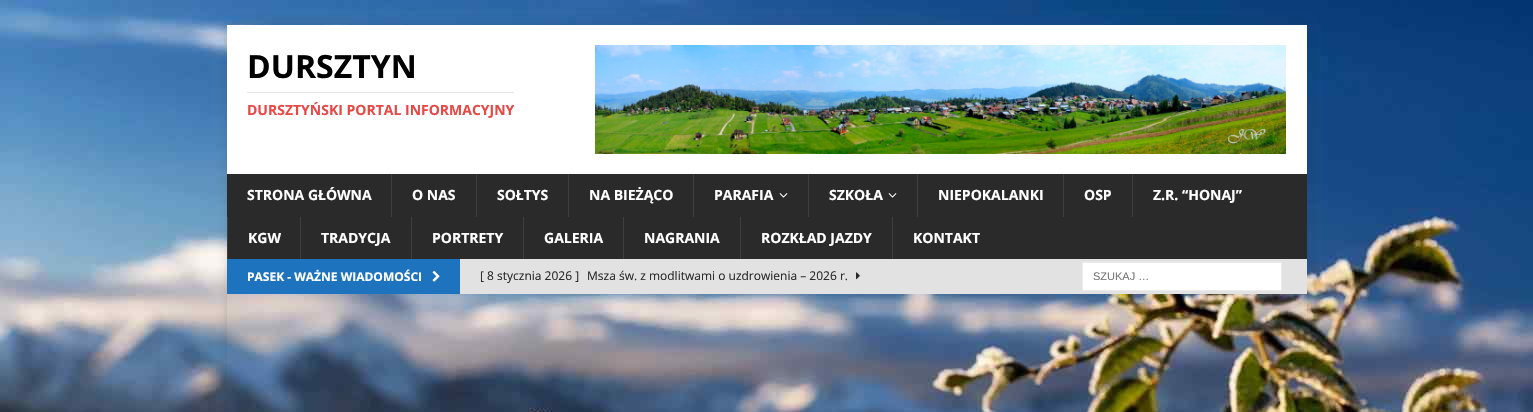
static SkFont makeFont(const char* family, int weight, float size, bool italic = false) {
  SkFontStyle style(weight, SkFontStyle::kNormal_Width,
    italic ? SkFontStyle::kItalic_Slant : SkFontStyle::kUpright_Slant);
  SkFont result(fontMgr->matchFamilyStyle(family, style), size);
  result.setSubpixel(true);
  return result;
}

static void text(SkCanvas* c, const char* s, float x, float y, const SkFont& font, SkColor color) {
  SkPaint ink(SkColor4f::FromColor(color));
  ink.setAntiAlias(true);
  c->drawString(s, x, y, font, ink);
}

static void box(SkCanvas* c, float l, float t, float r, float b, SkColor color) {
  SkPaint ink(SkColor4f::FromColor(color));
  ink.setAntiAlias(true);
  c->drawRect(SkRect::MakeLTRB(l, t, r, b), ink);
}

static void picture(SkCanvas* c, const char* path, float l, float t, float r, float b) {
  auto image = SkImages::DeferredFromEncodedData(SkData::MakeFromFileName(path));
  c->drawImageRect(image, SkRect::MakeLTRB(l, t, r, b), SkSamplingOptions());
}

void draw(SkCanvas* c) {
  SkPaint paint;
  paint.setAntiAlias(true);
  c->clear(0xffffffff);
  picture(c, "img_01.png", 0, 0, 1533, 412);
  c->save();
  c->clipPath(SkPathBuilder(SkPathFillType::kEvenOdd).moveTo(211, 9).lineTo(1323, 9).lineTo(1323, 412).lineTo(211, 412).close().moveTo(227, 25).lineTo(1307, 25).lineTo(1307, 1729).lineTo(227, 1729).close().detach(), true);
  paint.setColor(0x2b323232);
  paint.setMaskFilter(SkMaskFilter::MakeBlur(kNormal_SkBlurStyle, 5));
  c->drawRect(SkRect::MakeLTRB(227, 25, 1307, 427), paint);
  paint.setMaskFilter(nullptr);
  c->restore();
  box(c, 227, 25, 1307, 174, 0xffffffff);
  SkFont face1 = makeFont("Open Sans", 700, 32);
  text(c, "DURSZTYN", 247, 78, face1, 0xff000000);
  box(c, 247, 92, 514, 93, 0xffe5e5e5);
  SkFont face2 = makeFont("Open Sans", 700, 14);
  text(c, "DURSZTYŃSKI PORTAL INFORMACYJNY", 247, 115, face2, 0xffe64946);
  picture(c, "img_02.png", 595, 45, 1286, 154);
  box(c, 227, 174, 1307, 259, 0xff2a2a2a);
  text(c, "STRONA GŁÓWNA", 247, 200, face2, 0xffffffff);
  box(c, 391, 174, 392, 217, 0xff3f3f3f);
  text(c, "O NAS", 412, 200, face2, 0xffffffff);
  box(c, 476, 174, 477, 217, 0xff3f3f3f);
  text(c, "SOŁTYS", 497, 200, face2, 0xffffffff);
  box(c, 568, 174, 569, 217, 0xff3f3f3f);
  text(c, "NA BIEŻĄCO", 589, 200, face2, 0xffffffff);
  box(c, 693, 174, 694, 217, 0xff3f3f3f);
  text(c, "PARAFIA", 714, 200, face2, 0xffffffff);
  picture(c, "img_03.png", 779, 193, 788, 198);
  box(c, 808, 174, 809, 217, 0xff3f3f3f);
  text(c, "SZKOŁA", 829, 200, face2, 0xffffffff);
  picture(c, "img_03.png", 888, 193, 897, 198);
  box(c, 917, 174, 918, 217, 0xff3f3f3f);
  text(c, "NIEPOKALANKI", 938, 200, face2, 0xffffffff);
  box(c, 1063, 174, 1064, 217, 0xff3f3f3f);
  text(c, "OSP", 1084, 200, face2, 0xffffffff);
  box(c, 1132, 174, 1133, 217, 0xff3f3f3f);
  text(c, "Z.R. “HONAJ”", 1153, 200, face2, 0xffffffff);
  box(c, 227, 217, 228, 259, 0xff3f3f3f);
  text(c, "KGW", 248, 243, face2, 0xffffffff);
  box(c, 300, 217, 301, 259, 0xff3f3f3f);
  text(c, "TRADYCJA", 321, 243, face2, 0xffffffff);
  box(c, 411, 217, 412, 259, 0xff3f3f3f);
  text(c, "PORTRETY", 432, 243, face2, 0xffffffff);
  box(c, 523, 217, 524, 259, 0xff3f3f3f);
  text(c, "GALERIA", 544, 243, face2, 0xffffffff);
  box(c, 623, 217, 624, 259, 0xff3f3f3f);
  text(c, "NAGRANIA", 644, 243, face2, 0xffffffff);
  box(c, 740, 217, 741, 259, 0xff3f3f3f);
  text(c, "ROZKŁAD JAZDY", 761, 243, face2, 0xffffffff);
  box(c, 892, 217, 893, 259, 0xff3f3f3f);
  text(c, "KONTAKT", 913, 243, face2, 0xffffffff);
  box(c, 460, 259, 1307, 294, 0xffe2e2e2);
  box(c, 227, 259, 460, 294, 0xff1e73be);
  SkFont face3 = makeFont("Open Sans", 700, 12);
  text(c, "PASEK - WAŻNE WIADOMOŚCI", 247, 281, face3, 0xffffffff);
  picture(c, "img_04.png", 432, 270, 440, 282);
  SkFont face4 = makeFont("Open Sans", 400, 12);
  text(c, "[ 8 stycznia 2026 ]", 480, 280, face4, 0xff2a2a2a);
  text(c, "Msza św. z modlitwami o uzdrowienia – 2026 r.", 587, 280, face4, 0xff2a2a2a);
  picture(c, "img_05.png", 856, 272, 860, 280);
  paint.setColor(0xffffffff);
  c->drawRect(SkRect::MakeLTRB(1082.5f, 262.5f, 1281.5f, 290.5f), paint);
  paint.setStyle(SkPaint::kStroke_Style);
  paint.setStrokeWidth(1);
  paint.setColor(0xffebebeb);
  c->drawRect(SkRect::MakeLTRB(1082.5f, 262.5f, 1281.5f, 290.5f), paint);
  SkFont face5 = makeFont("Liberation Sans", 400, 11);
  text(c, "SZUKAJ …", 1093, 280, face5, 0xff757575);
}
